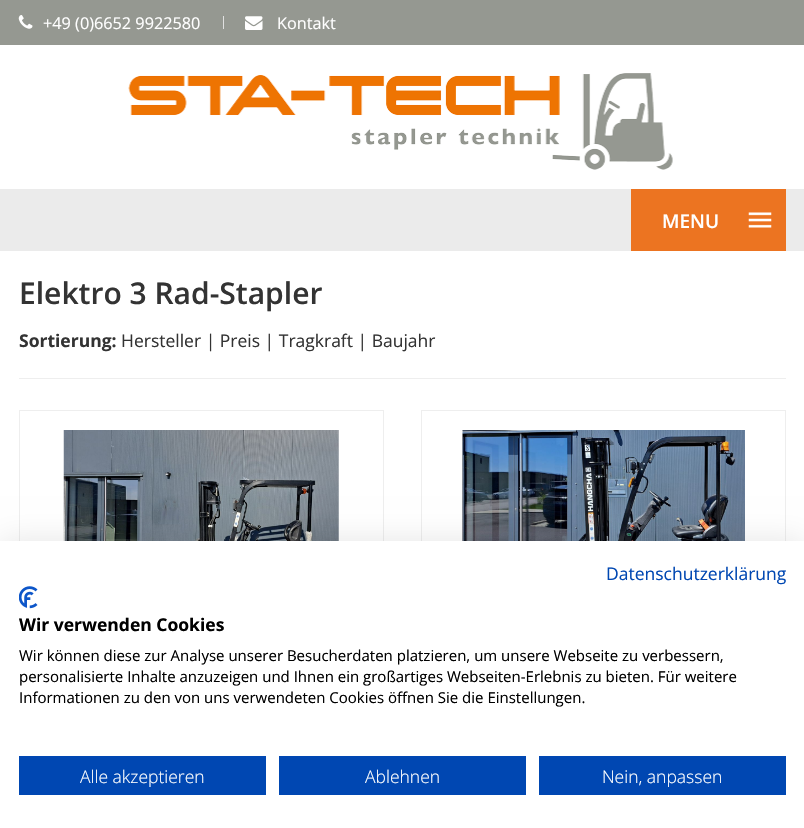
static SkFont makeFont(const char* family, int weight, float size, bool italic = false) {
  SkFontStyle style(weight, SkFontStyle::kNormal_Width,
    italic ? SkFontStyle::kItalic_Slant : SkFontStyle::kUpright_Slant);
  SkFont result(fontMgr->matchFamilyStyle(family, style), size);
  result.setSubpixel(true);
  return result;
}

static void text(SkCanvas* c, const char* s, float x, float y, const SkFont& font, SkColor color) {
  SkPaint ink(SkColor4f::FromColor(color));
  ink.setAntiAlias(true);
  c->drawString(s, x, y, font, ink);
}

static void box(SkCanvas* c, float l, float t, float r, float b, SkColor color) {
  SkPaint ink(SkColor4f::FromColor(color));
  ink.setAntiAlias(true);
  c->drawRect(SkRect::MakeLTRB(l, t, r, b), ink);
}

static void picture(SkCanvas* c, const char* path, float l, float t, float r, float b) {
  auto image = SkImages::DeferredFromEncodedData(SkData::MakeFromFileName(path));
  c->drawImageRect(image, SkRect::MakeLTRB(l, t, r, b), SkSamplingOptions());
}

void draw(SkCanvas* c) {
  SkPaint paint;
  paint.setAntiAlias(true);
  c->clear(0xffffffff);
  box(c, 0, 0, 804, 45, 0xff959891);
  picture(c, "img_01.png", 18, 15, 33, 29);
  SkFont face1 = makeFont("Open Sans", 400, 16.25f);
  text(c, "+49 (0)6652 9922580", 43, 29, face1, 0xffffffff);
  box(c, 223, 16, 224, 29, 0xffe0e0e0);
  picture(c, "img_02.png", 245, 16, 263, 30);
  text(c, "Kontakt", 277, 29, face1, 0xffffffff);
  picture(c, "img_03.png", 128, 73, 673, 170);
  box(c, 0, 189, 804, 251, 0xffebebeb);
  box(c, 631, 189, 786, 251, 0xffec7421);
  picture(c, "img_04.png", 748, 212, 772, 228);
  SkFont face2 = makeFont("Open Sans", 600, 19);
  text(c, "MENU", 662, 228, face2, 0xffffffff);
  SkFont face3 = makeFont("Open Sans", 600, 30);
  text(c, "Elektro 3 Rad-Stapler", 19, 304, face3, 0xff333333);
  SkFont face4 = makeFont("Open Sans", 700, 17.5f);
  text(c, "Sortierung:", 19, 347, face4, 0xff333333);
  SkFont face5 = makeFont("Open Sans", 400, 17.5f);
  text(c, "Hersteller | Preis | Tragkraft | Baujahr", 121, 347, face5, 0xff333333);
  box(c, 19, 378, 786, 379, 0xffeeeeee);
  paint.setStyle(SkPaint::kStroke_Style);
  paint.setStrokeWidth(1);
  paint.setColor(0xffeeeeee);
  c->drawRect(SkRect::MakeLTRB(19.5f, 410.5f, 383.5f, 788.5f), paint);
  picture(c, "img_05.png", 63, 430, 339, 541);
  c->drawRect(SkRect::MakeLTRB(421.5f, 410.5f, 785.5f, 788.5f), paint);
  picture(c, "img_06.png", 462, 430, 745, 541);
  paint.setStyle(SkPaint::kFill_Style);
  paint.setColor(0x1a000000);
  paint.setMaskFilter(SkMaskFilter::MakeBlur(kNormal_SkBlurStyle, 15));
  c->drawRect(SkRect::MakeLTRB(0, 541, 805, 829), paint);
  paint.setMaskFilter(nullptr);
  box(c, 0, 541, 804, 828, 0xffffffff);
  text(c, "Datenschutzerklärung", 606, 580, face5, 0xff0047b2);
  picture(c, "img_07.png", 19, 586, 38, 609);
  text(c, "Wir verwenden Cookies", 19, 631, face4, 0xff000000);
  SkFont face6 = makeFont("Open Sans", 400, 15);
  text(c, "Wir können diese zur Analyse unserer Besucherdaten platzieren, um unsere Webseite zu verbessern,", 19, 661, face6, 0xff000000);
  text(c, "personalisierte Inhalte anzuzeigen und Ihnen ein großartiges Webseiten-Erlebnis zu bieten. Für weitere", 19, 682, face6, 0xff000000);
  text(c, "Informationen zu den von uns verwendeten Cookies öffnen Sie die Einstellungen.", 19, 703, face6, 0xff000000);
  box(c, 19, 756, 266, 795, 0xff0047b2);
  SkFont face7 = makeFont("Open Sans", 300, 17.5f);
  text(c, "Alle akzeptieren", 80, 783, face7, 0xffffffff);
  box(c, 279, 756, 526, 795, 0xff0047b2);
  text(c, "Ablehnen", 365, 783, face7, 0xffffffff);
  box(c, 539, 756, 786, 795, 0xff0047b2);
  text(c, "Nein, anpassen", 602, 783, face7, 0xffffffff);
}
